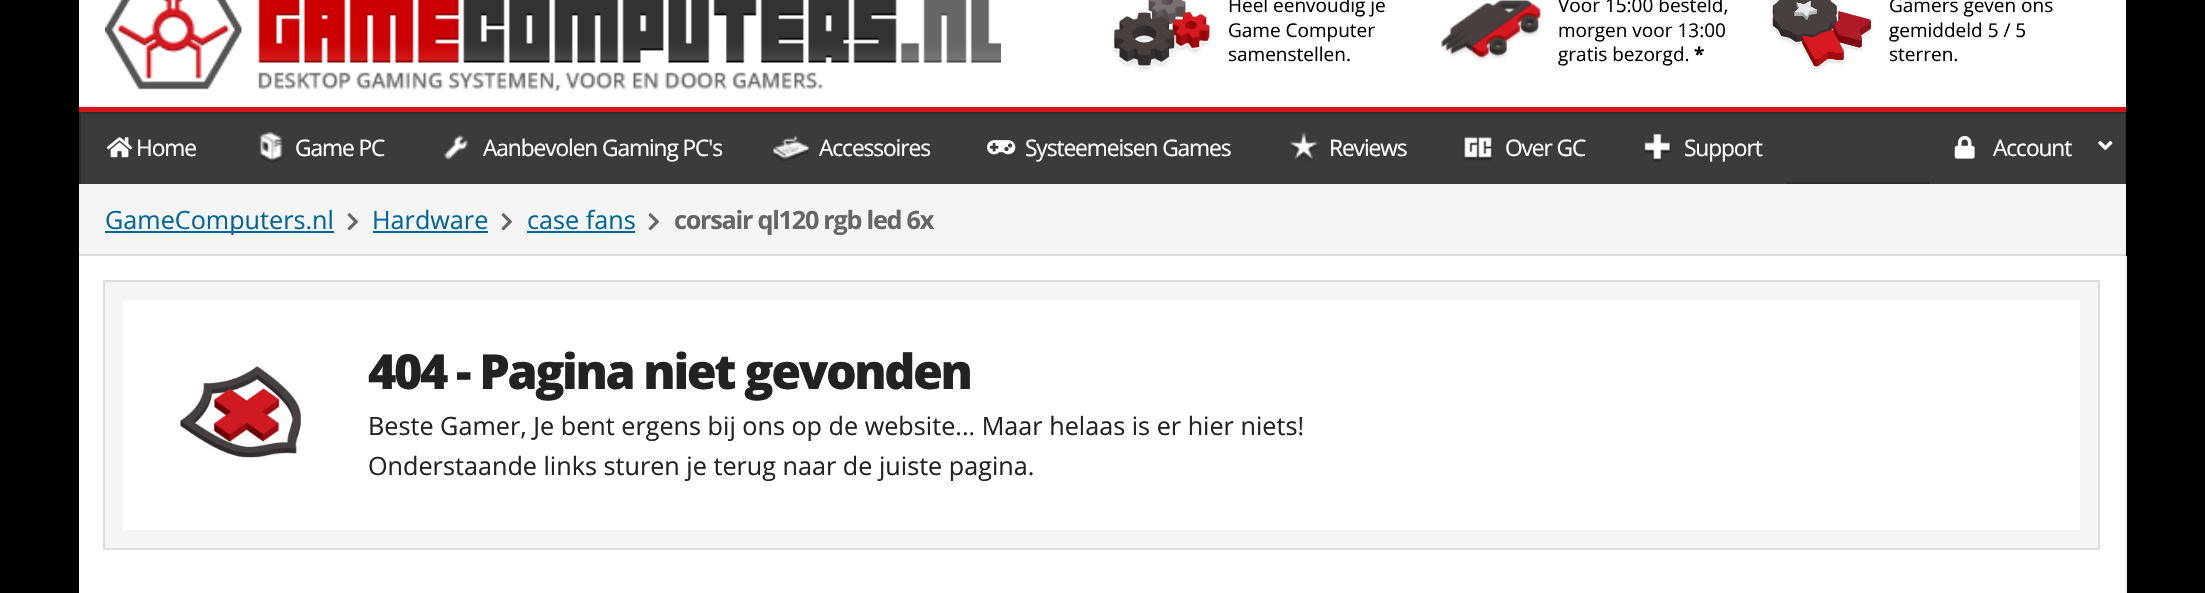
static SkFont makeFont(const char* family, int weight, float size, bool italic = false) {
  SkFontStyle style(weight, SkFontStyle::kNormal_Width,
    italic ? SkFontStyle::kItalic_Slant : SkFontStyle::kUpright_Slant);
  SkFont result(fontMgr->matchFamilyStyle(family, style), size);
  result.setSubpixel(true);
  return result;
}

static void text(SkCanvas* c, const char* s, float x, float y, const SkFont& font, SkColor color) {
  SkPaint ink(SkColor4f::FromColor(color));
  ink.setAntiAlias(true);
  c->drawString(s, x, y, font, ink);
}

static void spacedText(SkCanvas* c, const char* s, float x, float y, const SkFont& font, const SkPaint& ink, float letter, float word) {
  std::vector<SkGlyphID> glyphs(font.countText(s, strlen(s), SkTextEncoding::kUTF8));
  std::vector<float> xs(glyphs.size());
  font.textToGlyphs(s, strlen(s), SkTextEncoding::kUTF8, glyphs);
  font.getXPos(glyphs, xs, x);
  float extra = 0;
  for (size_t i = 0; i < glyphs.size(); i++) {
    xs[i] += extra;
    extra += letter + word * (glyphs[i] == font.unicharToGlyph(' '));
  }
  c->drawTextBlob(SkTextBlob::MakeFromPosHGlyphs(glyphs, xs, y, font), 0, 0, ink);
}

static void box(SkCanvas* c, float l, float t, float r, float b, SkColor color) {
  SkPaint ink(SkColor4f::FromColor(color));
  ink.setAntiAlias(true);
  c->drawRect(SkRect::MakeLTRB(l, t, r, b), ink);
}

static void picture(SkCanvas* c, const char* path, float l, float t, float r, float b) {
  auto image = SkImages::DeferredFromEncodedData(SkData::MakeFromFileName(path));
  c->drawImageRect(image, SkRect::MakeLTRB(l, t, r, b), SkSamplingOptions());
}

void draw(SkCanvas* c) {
  SkPaint paint;
  paint.setAntiAlias(true);
  c->clear(0xff000000);
  box(c, 79, 0, 2126, 593, 0xffffffff);
  box(c, 79, 107, 2126, 112, 0xffd41619);
  picture(c, "img_01.png", 105, 0, 1001, 91);
  picture(c, "img_02.png", 1112, 0, 1212, 72);
  SkFont face1 = makeFont("Open Sans", 400, 19);
  text(c, "Heel eenvoudig je", 1228, 12, face1, 0xff000000);
  text(c, "Game Computer", 1228, 37, face1, 0xff000000);
  text(c, "samenstellen.", 1228, 61, face1, 0xff000000);
  picture(c, "img_03.png", 1440, 0, 1542, 61);
  text(c, "Voor 15:00 besteld,", 1558, 12, face1, 0xff000000);
  text(c, "morgen voor 13:00", 1558, 37, face1, 0xff000000);
  text(c, "gratis bezorgd.", 1558, 61, face1, 0xff000000);
  SkFont face2 = makeFont("Open Sans", 700, 19);
  paint.setColor(0xff000000);
  spacedText(c, "*", 1694, 61, face2, paint, -1, 0);
  picture(c, "img_04.png", 1770, 0, 1873, 71);
  text(c, "Gamers geven ons", 1889, 12, face1, 0xff000000);
  text(c, "gemiddeld 5 / 5", 1889, 37, face1, 0xff000000);
  text(c, "sterren.", 1889, 61, face1, 0xff000000);
  paint.setStyle(SkPaint::kStroke_Style);
  paint.setStrokeWidth(2);
  paint.setColor(0xff2e2e2e);
  c->drawRect(SkRect::MakeLTRB(80, 113, 2125, 183), paint);
  box(c, 81, 114, 1787, 184, 0xff3b3b3b);
  picture(c, "img_05.png", 106, 137, 133, 158);
  SkFont face3 = makeFont("Open Sans", 400, 22.75f);
  paint.setStyle(SkPaint::kFill_Style);
  paint.setColor(0xffffffff);
  spacedText(c, "Home", 136, 156, face3, paint, -1.1f, 0);
  box(c, 1787, 114, 1929, 182, 0xff3b3b3b);
  picture(c, "img_06.png", 259, 132, 283, 162);
  spacedText(c, "Game PC", 295, 156, face3, paint, -1.1f, 0);
  picture(c, "img_07.png", 444, 135, 468, 160);
  spacedText(c, "Aanbevolen Gaming PC's", 483, 156, face3, paint, -1.1f, 0);
  picture(c, "img_08.png", 772, 135, 810, 161);
  spacedText(c, "Accessoires", 819, 156, face3, paint, -1.1f, 0);
  picture(c, "img_09.png", 987, 140, 1016, 155);
  spacedText(c, "Systeemeisen Games", 1025, 156, face3, paint, -1.1f, 0);
  picture(c, "img_10.png", 1289, 132, 1318, 161);
  spacedText(c, "Reviews", 1329, 156, face3, paint, -1.1f, 0);
  picture(c, "img_11.png", 1463, 137, 1493, 161);
  spacedText(c, "Over GC", 1505, 156, face3, paint, -1.1f, 0);
  picture(c, "img_12.png", 1643, 133, 1672, 162);
  spacedText(c, "Support", 1684, 156, face3, paint, -1.1f, 0);
  box(c, 1929, 114, 2125, 184, 0xff3b3b3b);
  picture(c, "img_13.png", 1954, 135, 1975, 159);
  spacedText(c, "Account", 1993, 156, face3, paint, -1.1f, 0);
  picture(c, "img_14.png", 2098, 140, 2113, 150);
  box(c, 79, 184, 2126, 254, 0xfff5f5f5);
  box(c, 79, 254, 2126, 256, 0xffdddddd);
  box(c, 105, 231, 334, 233, 0xff006699);
  SkFont face4 = makeFont("Open Sans", 400, 25.2f);
  text(c, "GameComputers.nl", 105, 229, face4, 0xff006699);
  picture(c, "img_15.png", 347, 213, 358, 231);
  text(c, "Hardware", 372, 229, face4, 0xff006699);
  box(c, 373, 231, 488, 233, 0xff006699);
  picture(c, "img_15.png", 501, 213, 512, 231);
  text(c, "case fans", 527, 229, face4, 0xff006699);
  box(c, 527, 231, 635, 233, 0xff006699);
  picture(c, "img_15.png", 648, 213, 659, 231);
  SkFont face5 = makeFont("Open Sans", 700, 25.2f);
  paint.setColor(0xff666666);
  spacedText(c, "corsair ql120 rgb led 6x", 674, 229, face5, paint, -1.25f, 0);
  box(c, 2125, 256, 2127, 593, 0xffeeeeee);
  paint.setStyle(SkPaint::kStroke_Style);
  paint.setStrokeWidth(18);
  paint.setColor(0xfff5f5f5);
  c->drawRect(SkRect::MakeLTRB(114, 291, 2089, 539), paint);
  paint.setStrokeWidth(2);
  paint.setColor(0xffdddddd);
  c->drawRect(SkRect::MakeLTRB(104, 281, 2099, 549), paint);
  picture(c, "img_16.png", 180, 366, 301, 458);
  SkFont face6 = makeFont("Open Sans", 800, 48.4f);
  paint.setStyle(SkPaint::kFill_Style);
  paint.setColor(0xff222222);
  spacedText(c, "404 - Pagina niet gevonden", 368, 389, face6, paint, -2.4f, 0);
  text(c, "Beste Gamer, Je bent ergens bij ons op de website... Maar helaas is er hier niets!", 368, 435, face4, 0xff222222);
  text(c, "Onderstaande links sturen je terug naar de juiste pagina.", 368, 475, face4, 0xff222222);
}
